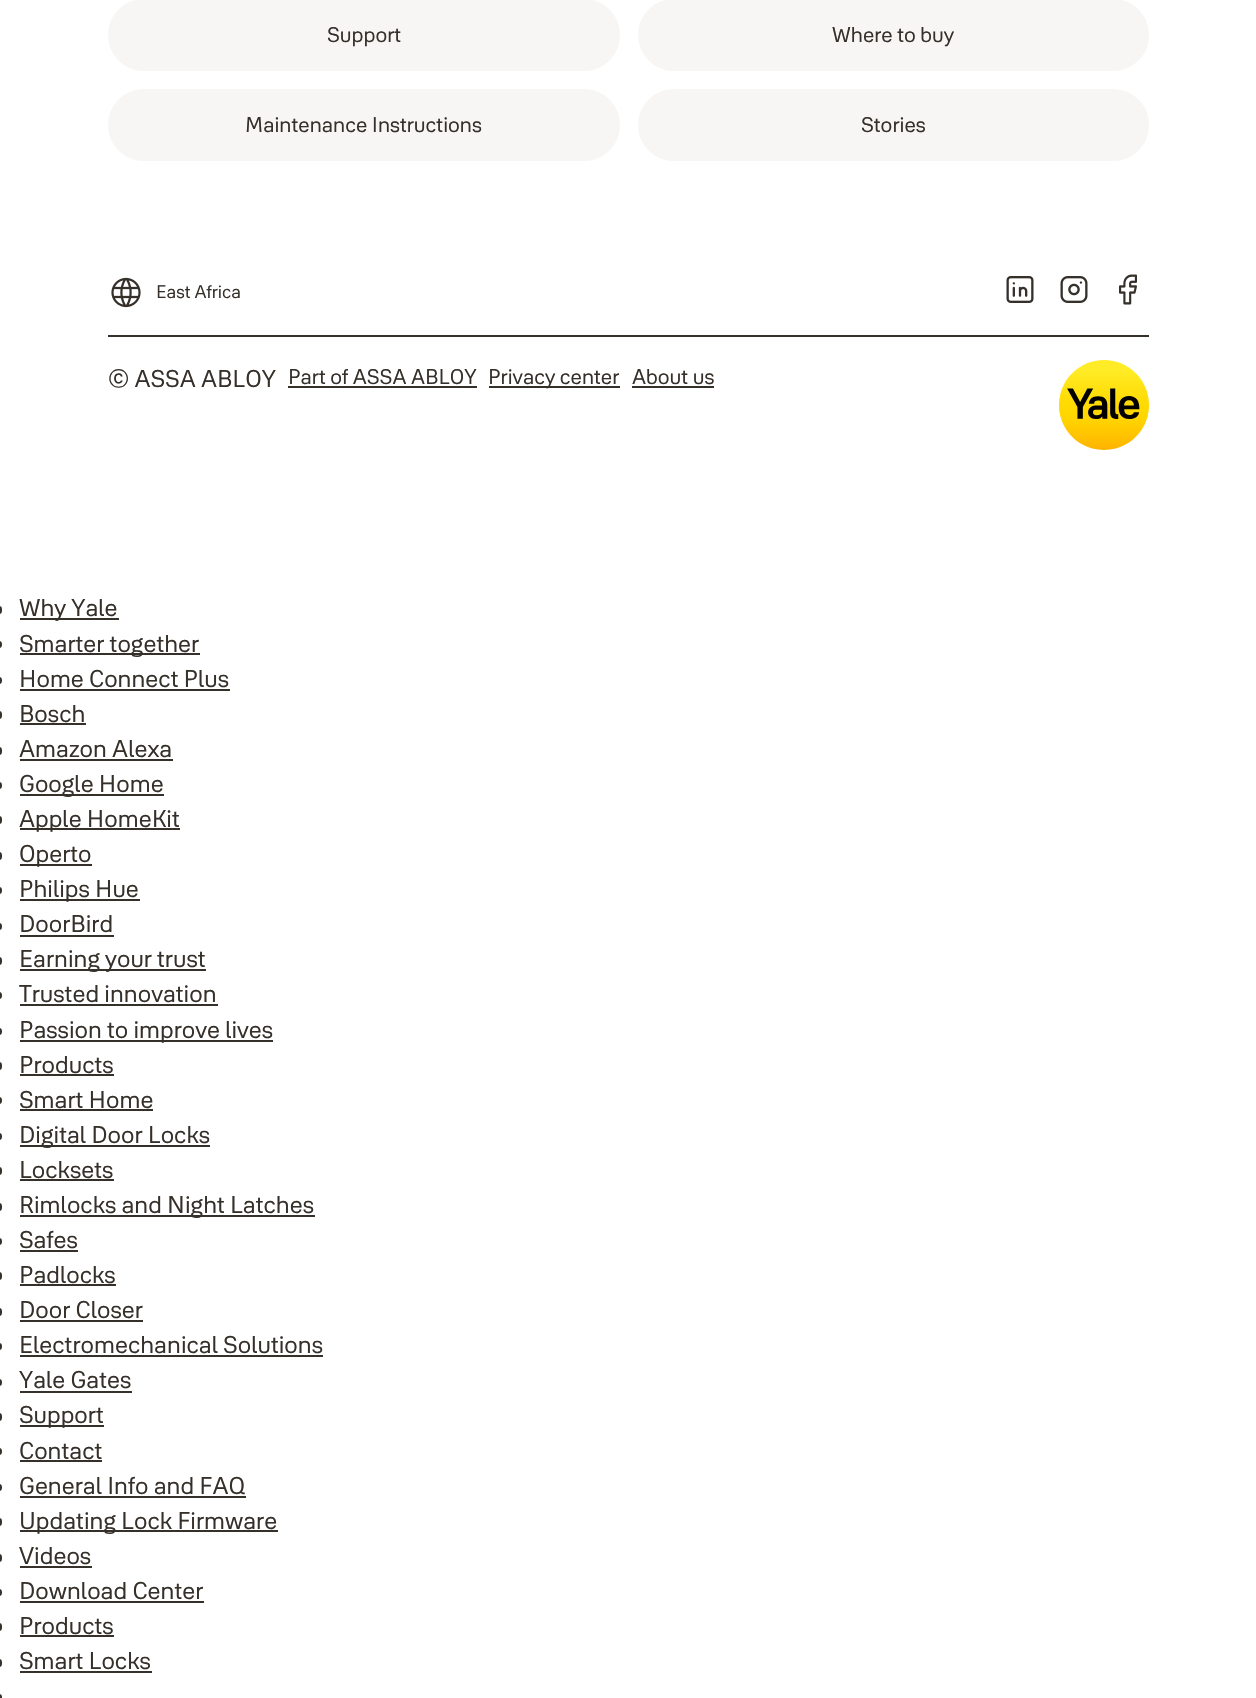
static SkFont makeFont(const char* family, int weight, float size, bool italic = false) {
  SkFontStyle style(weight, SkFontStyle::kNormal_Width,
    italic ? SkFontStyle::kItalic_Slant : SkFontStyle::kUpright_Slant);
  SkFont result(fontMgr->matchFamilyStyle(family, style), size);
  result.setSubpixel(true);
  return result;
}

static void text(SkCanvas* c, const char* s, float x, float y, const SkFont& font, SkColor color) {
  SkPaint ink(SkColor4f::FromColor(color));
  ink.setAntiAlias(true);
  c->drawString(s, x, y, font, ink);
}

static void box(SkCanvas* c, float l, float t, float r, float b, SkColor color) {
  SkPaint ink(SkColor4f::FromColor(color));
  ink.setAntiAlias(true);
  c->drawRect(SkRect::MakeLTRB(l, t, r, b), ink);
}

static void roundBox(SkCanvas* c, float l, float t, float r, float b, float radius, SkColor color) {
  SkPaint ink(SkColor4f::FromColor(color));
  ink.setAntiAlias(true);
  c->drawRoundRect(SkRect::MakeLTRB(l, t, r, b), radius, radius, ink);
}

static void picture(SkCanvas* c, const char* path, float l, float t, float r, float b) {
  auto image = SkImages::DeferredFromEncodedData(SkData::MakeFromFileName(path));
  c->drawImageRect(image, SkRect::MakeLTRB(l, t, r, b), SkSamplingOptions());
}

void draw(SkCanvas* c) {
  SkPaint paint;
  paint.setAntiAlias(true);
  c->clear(0xffffffff);
  paint.setColor(0xfff7f6f4);
  c->drawRoundRect(SkRect::MakeLTRB(109.5f, 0.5f, 618.5f, 69.5f), 34.5f, 34.5f, paint);
  paint.setStyle(SkPaint::kStroke_Style);
  paint.setStrokeWidth(3);
  c->drawRoundRect(SkRect::MakeLTRB(109.5f, 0.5f, 618.5f, 69.5f), 34.5f, 34.5f, paint);
  SkFont face1 = makeFont("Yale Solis", 400, 21);
  text(c, "Support", 327, 42, face1, 0xff36302a);
  paint.setStyle(SkPaint::kFill_Style);
  c->drawRoundRect(SkRect::MakeLTRB(639.5f, 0.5f, 1147.5f, 69.5f), 34.5f, 34.5f, paint);
  paint.setStyle(SkPaint::kStroke_Style);
  c->drawRoundRect(SkRect::MakeLTRB(639.5f, 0.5f, 1147.5f, 69.5f), 34.5f, 34.5f, paint);
  text(c, "Where to buy", 832, 42, face1, 0xff36302a);
  paint.setStyle(SkPaint::kFill_Style);
  c->drawRoundRect(SkRect::MakeLTRB(109.5f, 90.5f, 618.5f, 159.5f), 34.5f, 34.5f, paint);
  paint.setStyle(SkPaint::kStroke_Style);
  c->drawRoundRect(SkRect::MakeLTRB(109.5f, 90.5f, 618.5f, 159.5f), 34.5f, 34.5f, paint);
  text(c, "Maintenance Instructions", 245, 132, face1, 0xff36302a);
  paint.setStyle(SkPaint::kFill_Style);
  c->drawRoundRect(SkRect::MakeLTRB(639.5f, 90.5f, 1147.5f, 159.5f), 34.5f, 34.5f, paint);
  paint.setStyle(SkPaint::kStroke_Style);
  c->drawRoundRect(SkRect::MakeLTRB(639.5f, 90.5f, 1147.5f, 159.5f), 34.5f, 34.5f, paint);
  text(c, "Stories", 861, 132, face1, 0xff36302a);
  picture(c, "img_01.png", 111, 277, 141, 308);
  SkFont face2 = makeFont("Yale Solis", 400, 18);
  text(c, "East Africa", 156, 298, face2, 0xff36302a);
  picture(c, "img_02.png", 1006, 276, 1034, 303);
  picture(c, "img_03.png", 1060, 276, 1088, 303);
  picture(c, "img_04.png", 1119, 274, 1137, 305);
  box(c, 108, 335, 1149, 337, 0xff36302a);
  SkFont face3 = makeFont("Yale Solis", 400, 24);
  text(c, "© ASSA ABLOY", 108, 387, face3, 0xff36302a);
  text(c, "Part of ASSA ABLOY", 288, 384, face1, 0xff36302a);
  box(c, 288, 386, 477, 388, 0xff36302a);
  box(c, 489, 386, 620, 388, 0xff36302a);
  text(c, "Privacy center", 488, 384, face1, 0xff36302a);
  text(c, "About us", 632, 384, face1, 0xff36302a);
  box(c, 632, 386, 714, 388, 0xff36302a);
  picture(c, "img_05.png", 1059, 360, 1149, 450);
  roundBox(c, -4, 606, 2, 614, 4, 0xff36302a);
  box(c, 20, 618, 119, 620, 0xff36302a);
  text(c, "Why Yale", 19, 616, face3, 0xff36302a);
  roundBox(c, -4, 641, 2, 648, 3.5f, 0xff36302a);
  box(c, 20, 653, 200, 655, 0xff36302a);
  text(c, "Smarter together", 19, 652, face3, 0xff36302a);
  roundBox(c, -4, 677, 2, 684, 3.5f, 0xff36302a);
  text(c, "Home Connect Plus", 19, 687, face3, 0xff36302a);
  box(c, 20, 689, 230, 691, 0xff36302a);
  roundBox(c, -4, 711, 2, 719, 4, 0xff36302a);
  text(c, "Bosch", 19, 722, face3, 0xff36302a);
  box(c, 20, 723, 86, 725, 0xff36302a);
  roundBox(c, -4, 747, 2, 755, 4, 0xff36302a);
  text(c, "Amazon Alexa", 19, 757, face3, 0xff36302a);
  box(c, 20, 759, 173, 761, 0xff36302a);
  roundBox(c, -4, 782, 2, 789, 3.5f, 0xff36302a);
  box(c, 20, 794, 164, 796, 0xff36302a);
  text(c, "Google Home", 19, 792, face3, 0xff36302a);
  roundBox(c, -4, 816, 2, 824, 4, 0xff36302a);
  box(c, 20, 828, 180, 830, 0xff36302a);
  text(c, "Apple HomeKit", 19, 827, face3, 0xff36302a);
  roundBox(c, -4, 852, 2, 860, 4, 0xff36302a);
  box(c, 20, 864, 92, 866, 0xff36302a);
  text(c, "Operto", 19, 862, face3, 0xff36302a);
  roundBox(c, -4, 887, 2, 894, 3.5f, 0xff36302a);
  box(c, 20, 899, 140, 901, 0xff36302a);
  text(c, "Philips Hue", 19, 897, face3, 0xff36302a);
  roundBox(c, -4, 923, 2, 930, 3.5f, 0xff36302a);
  text(c, "DoorBird", 19, 932, face3, 0xff36302a);
  box(c, 20, 935, 114, 937, 0xff36302a);
  roundBox(c, -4, 957, 2, 965, 4, 0xff36302a);
  box(c, 20, 969, 206, 971, 0xff36302a);
  text(c, "Earning your trust", 19, 967, face3, 0xff36302a);
  roundBox(c, -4, 992, 2, 999, 3.5f, 0xff36302a);
  text(c, "Trusted innovation", 19, 1002, face3, 0xff36302a);
  box(c, 20, 1004, 218, 1006, 0xff36302a);
  roundBox(c, -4, 1028, 2, 1035, 3.5f, 0xff36302a);
  box(c, 20, 1040, 273, 1042, 0xff36302a);
  text(c, "Passion to improve lives", 19, 1038, face3, 0xff36302a);
  roundBox(c, -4, 1062, 2, 1070, 4, 0xff36302a);
  text(c, "Products", 19, 1073, face3, 0xff36302a);
  box(c, 20, 1074, 114, 1076, 0xff36302a);
  roundBox(c, -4, 1097, 2, 1104, 3.5f, 0xff36302a);
  text(c, "Smart Home", 19, 1108, face3, 0xff36302a);
  box(c, 20, 1109, 153, 1111, 0xff36302a);
  roundBox(c, -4, 1133, 2, 1140, 3.5f, 0xff36302a);
  box(c, 20, 1145, 210, 1147, 0xff36302a);
  text(c, "Digital Door Locks", 19, 1143, face3, 0xff36302a);
  roundBox(c, -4, 1167, 2, 1175, 4, 0xff36302a);
  text(c, "Locksets", 19, 1178, face3, 0xff36302a);
  box(c, 20, 1179, 114, 1181, 0xff36302a);
  roundBox(c, -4, 1203, 2, 1211, 4, 0xff36302a);
  box(c, 20, 1215, 315, 1217, 0xff36302a);
  text(c, "Rimlocks and Night Latches", 19, 1213, face3, 0xff36302a);
  roundBox(c, -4, 1238, 2, 1245, 3.5f, 0xff36302a);
  text(c, "Safes", 19, 1248, face3, 0xff36302a);
  box(c, 20, 1250, 78, 1252, 0xff36302a);
  roundBox(c, -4, 1272, 2, 1280, 4, 0xff36302a);
  text(c, "Padlocks", 19, 1283, face3, 0xff36302a);
  box(c, 20, 1284, 116, 1286, 0xff36302a);
  roundBox(c, -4, 1308, 2, 1316, 4, 0xff36302a);
  text(c, "Door Closer", 19, 1318, face3, 0xff36302a);
  box(c, 20, 1320, 143, 1322, 0xff36302a);
  roundBox(c, -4, 1343, 2, 1350, 3.5f, 0xff36302a);
  text(c, "Electromechanical Solutions", 19, 1353, face3, 0xff36302a);
  box(c, 20, 1355, 323, 1357, 0xff36302a);
  roundBox(c, -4, 1379, 2, 1386, 3.5f, 0xff36302a);
  text(c, "Yale Gates", 19, 1388, face3, 0xff36302a);
  box(c, 20, 1391, 132, 1393, 0xff36302a);
  roundBox(c, -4, 1413, 2, 1421, 4, 0xff36302a);
  box(c, 20, 1425, 104, 1427, 0xff36302a);
  text(c, "Support", 19, 1423, face3, 0xff36302a);
  roundBox(c, -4, 1448, 2, 1455, 3.5f, 0xff36302a);
  text(c, "Contact", 19, 1459, face3, 0xff36302a);
  box(c, 20, 1460, 102, 1462, 0xff36302a);
  roundBox(c, -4, 1484, 2, 1491, 3.5f, 0xff36302a);
  text(c, "General Info and FAQ", 19, 1494, face3, 0xff36302a);
  box(c, 20, 1496, 246, 1498, 0xff36302a);
  roundBox(c, -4, 1518, 2, 1526, 4, 0xff36302a);
  box(c, 20, 1530, 278, 1532, 0xff36302a);
  text(c, "Updating Lock Firmware", 19, 1529, face3, 0xff36302a);
  roundBox(c, -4, 1554, 2, 1562, 4, 0xff36302a);
  text(c, "Videos", 19, 1564, face3, 0xff36302a);
  box(c, 20, 1566, 92, 1568, 0xff36302a);
  roundBox(c, -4, 1589, 2, 1596, 3.5f, 0xff36302a);
  text(c, "Download Center", 19, 1599, face3, 0xff36302a);
  box(c, 20, 1601, 204, 1603, 0xff36302a);
  roundBox(c, -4, 1623, 2, 1631, 4, 0xff36302a);
  text(c, "Products", 19, 1634, face3, 0xff36302a);
  box(c, 20, 1635, 114, 1637, 0xff36302a);
  roundBox(c, -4, 1659, 2, 1667, 4, 0xff36302a);
  text(c, "Smart Locks", 19, 1669, face3, 0xff36302a);
  box(c, 20, 1671, 152, 1673, 0xff36302a);
  roundBox(c, -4, 1694, 2, 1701, 3.5f, 0xff36302a);
}
